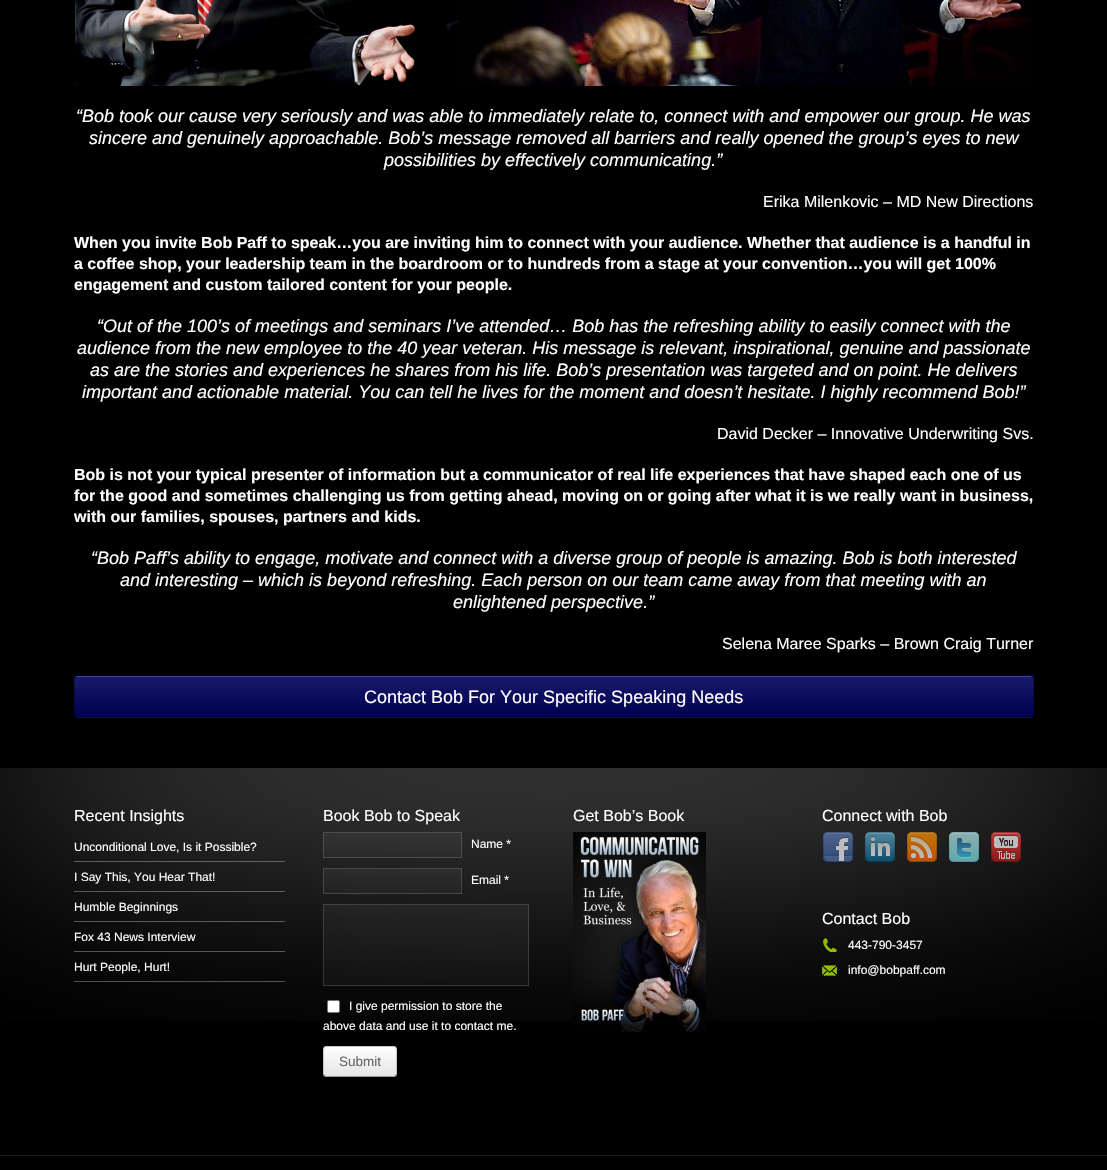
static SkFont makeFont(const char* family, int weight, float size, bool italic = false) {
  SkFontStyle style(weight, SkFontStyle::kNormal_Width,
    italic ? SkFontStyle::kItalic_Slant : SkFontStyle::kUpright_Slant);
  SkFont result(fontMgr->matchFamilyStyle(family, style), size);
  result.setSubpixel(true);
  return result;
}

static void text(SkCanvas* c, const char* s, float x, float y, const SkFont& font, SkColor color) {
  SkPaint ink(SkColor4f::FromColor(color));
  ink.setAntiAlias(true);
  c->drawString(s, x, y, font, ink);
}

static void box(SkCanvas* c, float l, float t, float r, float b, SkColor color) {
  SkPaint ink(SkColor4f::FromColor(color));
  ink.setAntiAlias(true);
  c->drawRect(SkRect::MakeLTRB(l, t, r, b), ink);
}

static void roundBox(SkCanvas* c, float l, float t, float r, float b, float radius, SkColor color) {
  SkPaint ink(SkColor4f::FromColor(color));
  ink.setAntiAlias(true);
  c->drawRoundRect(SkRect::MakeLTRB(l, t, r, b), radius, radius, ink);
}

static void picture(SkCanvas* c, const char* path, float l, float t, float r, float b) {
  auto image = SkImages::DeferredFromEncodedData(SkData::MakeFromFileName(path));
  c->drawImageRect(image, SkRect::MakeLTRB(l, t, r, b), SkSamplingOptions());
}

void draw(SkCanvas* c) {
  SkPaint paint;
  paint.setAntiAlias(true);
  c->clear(0xff000000);
  picture(c, "img_01.png", 75, 0, 1032, 86);
  SkFont face1 = makeFont("Liberation Sans", 400, 18, true);
  text(c, "“Bob took our cause very seriously and was able to immediately relate to, connect with and empower our group. He was", 76, 122, face1, 0xffffffff);
  text(c, "sincere and genuinely approachable. Bob’s message removed all barriers and really opened the group’s eyes to new", 89, 144, face1, 0xffffffff);
  text(c, "possibilities by effectively communicating.”", 384, 166, face1, 0xffffffff);
  SkFont face2 = makeFont("Liberation Sans", 400, 16);
  text(c, "Erika Milenkovic – MD New Directions", 763, 207, face2, 0xffffffff);
  SkFont face3 = makeFont("Liberation Sans", 700, 16);
  text(c, "When you invite Bob Paff to speak…you are inviting him to connect with your audience. Whether that audience is a handful in", 74, 248, face3, 0xffffffff);
  text(c, "a coffee shop, your leadership team in the boardroom or to hundreds from a stage at your convention…you will get 100%", 74, 269, face3, 0xffffffff);
  text(c, "engagement and custom tailored content for your people.", 74, 290, face3, 0xffffffff);
  text(c, "“Out of the 100’s of meetings and seminars I’ve attended… Bob has the refreshing ability to easily connect with the", 97, 332, face1, 0xffffffff);
  text(c, "audience from the new employee to the 40 year veteran. His message is relevant, inspirational, genuine and passionate", 77, 354, face1, 0xffffffff);
  text(c, "as are the stories and experiences he shares from his life. Bob’s presentation was targeted and on point. He delivers", 90, 376, face1, 0xffffffff);
  text(c, "important and actionable material. You can tell he lives for the moment and doesn’t hesitate. I highly recommend Bob!”", 82, 398, face1, 0xffffffff);
  text(c, "David Decker – Innovative Underwriting Svs.", 717, 439, face2, 0xffffffff);
  text(c, "Bob is not your typical presenter of information but a communicator of real life experiences that have shaped each one of us", 74, 480, face3, 0xffffffff);
  text(c, "for the good and sometimes challenging us from getting ahead, moving on or going after what it is we really want in business,", 74, 501, face3, 0xffffffff);
  text(c, "with our families, spouses, partners and kids.", 74, 522, face3, 0xffffffff);
  text(c, "“Bob Paff’s ability to engage, motivate and connect with a diverse group of people is amazing. Bob is both interested", 91, 564, face1, 0xffffffff);
  text(c, "and interesting – which is beyond refreshing. Each person on our team came away from that meeting with an", 120, 586, face1, 0xffffffff);
  text(c, "enlightened perspective.”", 453, 608, face1, 0xffffffff);
  text(c, "Selena Maree Sparks – Brown Craig Turner", 722, 649, face2, 0xffffffff);
  roundBox(c, 74, 675, 1034, 718, 4, 0xff000059);
  c->save();
  c->clipPath(SkPathBuilder().moveTo(78, 675).lineTo(1030, 675).cubicTo(1032, 675, 1034, 677, 1034, 679).lineTo(1034, 714).cubicTo(1034, 716, 1032, 718, 1030, 718).lineTo(78, 718).cubicTo(76, 718, 74, 716, 74, 714).lineTo(74, 679).cubicTo(74, 677, 76, 675, 78, 675).close().detach(), true);
  {
    const SkColor colors[] = {0x1a000000, 0x1affffff};
    const float stops[] = {0, 1};
    const SkPoint ends[] = {{554, 676}, {554, 635}};
    paint.setShader(SkGradientShader::MakeLinear(ends, colors, stops, 2, SkTileMode::kClamp));
    paint.setAlpha(255);
  }
  c->drawRect(SkRect::MakeLTRB(74, 675, 1034, 676), paint);
  {
    const SkColor colors[] = {0x1a000000, 0x1affffff};
    const float stops[] = {0, 1};
    const SkPoint ends[] = {{554, 717}, {554, 676}};
    paint.setShader(SkGradientShader::MakeLinear(ends, colors, stops, 2, SkTileMode::kClamp));
    paint.setAlpha(255);
  }
  c->drawRect(SkRect::MakeLTRB(74, 676, 1034, 717), paint);
  {
    const SkColor colors[] = {0x1a000000, 0x1affffff};
    const float stops[] = {0, 1};
    const SkPoint ends[] = {{554, 758}, {554, 717}};
    paint.setShader(SkGradientShader::MakeLinear(ends, colors, stops, 2, SkTileMode::kClamp));
    paint.setAlpha(255);
  }
  c->drawRect(SkRect::MakeLTRB(74, 717, 1034, 718), paint);
  c->restore();
  paint.setStyle(SkPaint::kStroke_Style);
  paint.setStrokeWidth(1);
  paint.setShader(nullptr);
  paint.setColor(0x66000000);
  c->drawPath(SkPathBuilder().moveTo(1032.5f, 716.5f).lineTo(1030, 717.5f).lineTo(78, 717.5f).lineTo(75.5f, 716.5f).detach(), paint);
  paint.setColor(0x33000000);
  c->drawPath(SkPathBuilder().moveTo(75.5f, 716.5f).cubicTo(75, 716, 74.5f, 715, 74.5f, 714).lineTo(74.5f, 679).cubicTo(74.5f, 678, 75, 677, 75.5f, 676.5f).cubicTo(76, 676, 77, 675.5f, 78, 675.5f).lineTo(1030, 675.5f).cubicTo(1031, 675.5f, 1032, 676, 1032.5f, 676.5f).cubicTo(1033, 677, 1033.5f, 678, 1033.5f, 679).lineTo(1033.5f, 714).cubicTo(1033.5f, 715, 1033, 716, 1032.5f, 716.5f).detach(), paint);
  box(c, 77, 676, 1031, 677, 0xff474787);
  SkFont face4 = makeFont("Liberation Sans", 400, 18);
  text(c, "Contact Bob For Your Specific Speaking Needs", 364, 703, face4, 0xffffffff);
  picture(c, "img_02.png", 0, 768, 1107, 1021);
  text(c, "Recent Insights", 74, 821, face2, 0xffffffff);
  box(c, 74, 861, 285, 862, 0x4dffffff);
  SkFont face5 = makeFont("Liberation Sans", 400, 12);
  text(c, "Unconditional Love, Is it Possible?", 74, 851, face5, 0xffffffff);
  box(c, 74, 891, 285, 892, 0x4dffffff);
  text(c, "I Say This, You Hear That!", 74, 881, face5, 0xffffffff);
  box(c, 74, 921, 285, 922, 0x4dffffff);
  text(c, "Humble Beginnings", 74, 911, face5, 0xffffffff);
  box(c, 74, 951, 285, 952, 0x4dffffff);
  text(c, "Fox 43 News Interview", 74, 941, face5, 0xffffffff);
  box(c, 74, 981, 285, 982, 0x4dffffff);
  text(c, "Hurt People, Hurt!", 74, 971, face5, 0xffffffff);
  text(c, "Book Bob to Speak", 323, 821, face2, 0xffffffff);
  paint.setStyle(SkPaint::kFill_Style);
  {
    const SkColor colors[] = {0x08ffffff, 0x0dffffff};
    const float stops[] = {0, 1};
    const SkPoint ends[] = {{393, 833}, {393, 809}};
    paint.setShader(SkGradientShader::MakeLinear(ends, colors, stops, 2, SkTileMode::kClamp));
    paint.setAlpha(255);
  }
  c->drawRect(SkRect::MakeLTRB(323, 832, 462, 833), paint);
  {
    const SkColor colors[] = {0x08ffffff, 0x0dffffff};
    const float stops[] = {0, 1};
    const SkPoint ends[] = {{393, 857}, {393, 833}};
    paint.setShader(SkGradientShader::MakeLinear(ends, colors, stops, 2, SkTileMode::kClamp));
    paint.setAlpha(255);
  }
  c->drawRect(SkRect::MakeLTRB(323, 833, 462, 857), paint);
  {
    const SkColor colors[] = {0xff2a2a2a, 0xff2e2e2e};
    const float stops[] = {0, 1};
    const SkPoint ends[] = {{393, 881}, {393, 857}};
    paint.setShader(SkGradientShader::MakeLinear(ends, colors, stops, 2, SkTileMode::kClamp));
    paint.setAlpha(255);
  }
  c->drawPath(SkPathBuilder().moveTo(323, 857).lineTo(462, 857).cubicTo(462, 857.5f, 461.5f, 858, 461, 858).lineTo(324, 858).cubicTo(323.5f, 858, 323, 857.5f, 323, 857).close().detach(), paint);
  paint.setStyle(SkPaint::kStroke_Style);
  paint.setShader(nullptr);
  paint.setColor(0x26ffffff);
  c->drawRect(SkRect::MakeLTRB(323.5f, 832.5f, 461.5f, 857.5f), paint);
  text(c, "Name *", 471, 848, face5, 0xffffffff);
  paint.setStyle(SkPaint::kFill_Style);
  {
    const SkColor colors[] = {0xff282828, 0xff2c2c2c};
    const float stops[] = {0, 1};
    const SkPoint ends[] = {{393, 869}, {393, 845}};
    paint.setShader(SkGradientShader::MakeLinear(ends, colors, stops, 2, SkTileMode::kClamp));
    paint.setAlpha(255);
  }
  c->drawPath(SkPathBuilder().moveTo(324, 868).lineTo(461, 868).cubicTo(461.5f, 868, 462, 868.5f, 462, 869).lineTo(323, 869).cubicTo(323, 868.5f, 323.5f, 868, 324, 868).close().detach(), paint);
  {
    const SkColor colors[] = {0x08ffffff, 0x0dffffff};
    const float stops[] = {0, 1};
    const SkPoint ends[] = {{393, 893}, {393, 869}};
    paint.setShader(SkGradientShader::MakeLinear(ends, colors, stops, 2, SkTileMode::kClamp));
    paint.setAlpha(255);
  }
  c->drawRect(SkRect::MakeLTRB(323, 869, 462, 893), paint);
  {
    const SkColor colors[] = {0xff222222, 0xff272727};
    const float stops[] = {0, 1};
    const SkPoint ends[] = {{393, 917}, {393, 893}};
    paint.setShader(SkGradientShader::MakeLinear(ends, colors, stops, 2, SkTileMode::kClamp));
    paint.setAlpha(255);
  }
  c->drawPath(SkPathBuilder().moveTo(323, 893).lineTo(462, 893).cubicTo(462, 893.5f, 461.5f, 894, 461, 894).lineTo(324, 894).cubicTo(323.5f, 894, 323, 893.5f, 323, 893).close().detach(), paint);
  paint.setStyle(SkPaint::kStroke_Style);
  paint.setShader(nullptr);
  paint.setColor(0x26ffffff);
  c->drawRect(SkRect::MakeLTRB(323.5f, 868.5f, 461.5f, 893.5f), paint);
  text(c, "Email *", 471, 884, face5, 0xffffffff);
  paint.setStyle(SkPaint::kFill_Style);
  {
    const SkColor colors[] = {0xff202020, 0xff252525};
    const float stops[] = {0, 1};
    const SkPoint ends[] = {{426, 905}, {426, 825}};
    paint.setShader(SkGradientShader::MakeLinear(ends, colors, stops, 2, SkTileMode::kClamp));
    paint.setAlpha(255);
  }
  c->drawPath(SkPathBuilder().moveTo(324, 904).lineTo(528, 904).cubicTo(528.5f, 904, 529, 904.5f, 529, 905).lineTo(323, 905).cubicTo(323, 904.5f, 323.5f, 904, 324, 904).close().detach(), paint);
  {
    const SkColor colors[] = {0x08ffffff, 0x0dffffff};
    const float stops[] = {0, 1};
    const SkPoint ends[] = {{426, 985}, {426, 905}};
    paint.setShader(SkGradientShader::MakeLinear(ends, colors, stops, 2, SkTileMode::kClamp));
    paint.setAlpha(255);
  }
  c->drawRect(SkRect::MakeLTRB(323, 905, 529, 985), paint);
  {
    const SkColor colors[] = {0xff111111, 0xff161616};
    const float stops[] = {0, 1};
    const SkPoint ends[] = {{426, 1065}, {426, 985}};
    paint.setShader(SkGradientShader::MakeLinear(ends, colors, stops, 2, SkTileMode::kClamp));
    paint.setAlpha(255);
  }
  c->drawPath(SkPathBuilder().moveTo(323, 985).lineTo(529, 985).cubicTo(529, 985.5f, 528.5f, 986, 528, 986).lineTo(324, 986).cubicTo(323.5f, 986, 323, 985.5f, 323, 985).close().detach(), paint);
  paint.setStyle(SkPaint::kStroke_Style);
  paint.setShader(nullptr);
  paint.setColor(0x26ffffff);
  c->drawRect(SkRect::MakeLTRB(323.5f, 904.5f, 528.5f, 985.5f), paint);
  paint.setStyle(SkPaint::kFill_Style);
  paint.setColor(0xffffffff);
  c->drawRoundRect(SkRect::MakeLTRB(327.5f, 1000.5f, 339.5f, 1012.5f), 1.5f, 1.5f, paint);
  paint.setStyle(SkPaint::kStroke_Style);
  paint.setColor(0xff767676);
  c->drawRoundRect(SkRect::MakeLTRB(327.5f, 1000.5f, 339.5f, 1012.5f), 1.5f, 1.5f, paint);
  text(c, "I give permission to store the", 349, 1010, face5, 0xffffffff);
  text(c, "above data and use it to contact me.", 323, 1030, face5, 0xffffffff);
  roundBox(c, 323, 1046, 397, 1077, 4, 0xffffffff);
  c->save();
  c->clipPath(SkPathBuilder().moveTo(327, 1046).lineTo(393, 1046).cubicTo(395, 1046, 397, 1048, 397, 1050).lineTo(397, 1073).cubicTo(397, 1075, 395, 1077, 393, 1077).lineTo(327, 1077).cubicTo(325, 1077, 323, 1075, 323, 1073).lineTo(323, 1050).cubicTo(323, 1048, 325, 1046, 327, 1046).close().detach(), true);
  paint.setStyle(SkPaint::kFill_Style);
  {
    const SkColor colors[] = {0x1a000000, 0x1affffff};
    const float stops[] = {0, 1};
    const SkPoint ends[] = {{360, 1047}, {360, 1018}};
    paint.setShader(SkGradientShader::MakeLinear(ends, colors, stops, 2, SkTileMode::kClamp));
    paint.setAlpha(255);
  }
  c->drawRect(SkRect::MakeLTRB(323, 1046, 397, 1047), paint);
  {
    const SkColor colors[] = {0x1a000000, 0x1affffff};
    const float stops[] = {0, 1};
    const SkPoint ends[] = {{360, 1076}, {360, 1047}};
    paint.setShader(SkGradientShader::MakeLinear(ends, colors, stops, 2, SkTileMode::kClamp));
    paint.setAlpha(255);
  }
  c->drawRect(SkRect::MakeLTRB(323, 1047, 397, 1076), paint);
  {
    const SkColor colors[] = {0x1a000000, 0x1affffff};
    const float stops[] = {0, 1};
    const SkPoint ends[] = {{360, 1105}, {360, 1076}};
    paint.setShader(SkGradientShader::MakeLinear(ends, colors, stops, 2, SkTileMode::kClamp));
    paint.setAlpha(255);
  }
  c->drawRect(SkRect::MakeLTRB(323, 1076, 397, 1077), paint);
  c->restore();
  paint.setStyle(SkPaint::kStroke_Style);
  paint.setShader(nullptr);
  paint.setColor(0x66000000);
  c->drawPath(SkPathBuilder().moveTo(395.5f, 1075.5f).lineTo(393.5f, 1076.5f).lineTo(326.5f, 1076.5f).lineTo(324.5f, 1075.5f).detach(), paint);
  paint.setColor(0x33000000);
  c->drawPath(SkPathBuilder().moveTo(324.5f, 1075.5f).cubicTo(322.5f, 1073, 323.5f, 1064.5f, 323.5f, 1061.5f).cubicTo(323.5f, 1044.5f, 321, 1046.5f, 338, 1046.5f).lineTo(382, 1046.5f).cubicTo(399, 1046.5f, 396.5f, 1044.5f, 396.5f, 1061.5f).cubicTo(396.5f, 1064.5f, 397.5f, 1073, 395.5f, 1075.5f).detach(), paint);
  box(c, 324, 1046, 396, 1047, 0x33ffffff);
  SkFont face6 = makeFont("Liberation Sans", 400, 13.5f);
  text(c, "Submit", 339, 1066, face6, 0xff666666);
  text(c, "Get Bob’s Book", 573, 821, face2, 0xffffffff);
  picture(c, "img_03.png", 573, 832, 706, 1032);
  text(c, "Connect with Bob", 822, 821, face2, 0xffffffff);
  picture(c, "img_04.png", 823, 832, 853, 862);
  picture(c, "img_05.png", 865, 832, 895, 862);
  picture(c, "img_06.png", 907, 832, 937, 862);
  picture(c, "img_07.png", 949, 832, 979, 862);
  picture(c, "img_08.png", 991, 832, 1021, 862);
  text(c, "Contact Bob", 822, 924, face2, 0xffffffff);
  picture(c, "img_09.png", 823, 938, 838, 952);
  text(c, "443-790-3457", 848, 949, face5, 0xffffffff);
  picture(c, "img_10.png", 822, 965, 837, 976);
  text(c, "info@bobpaff.com", 848, 974, face5, 0xffffffff);
  box(c, 0, 1155, 1107, 1156, 0xff1a1a1a);
}
